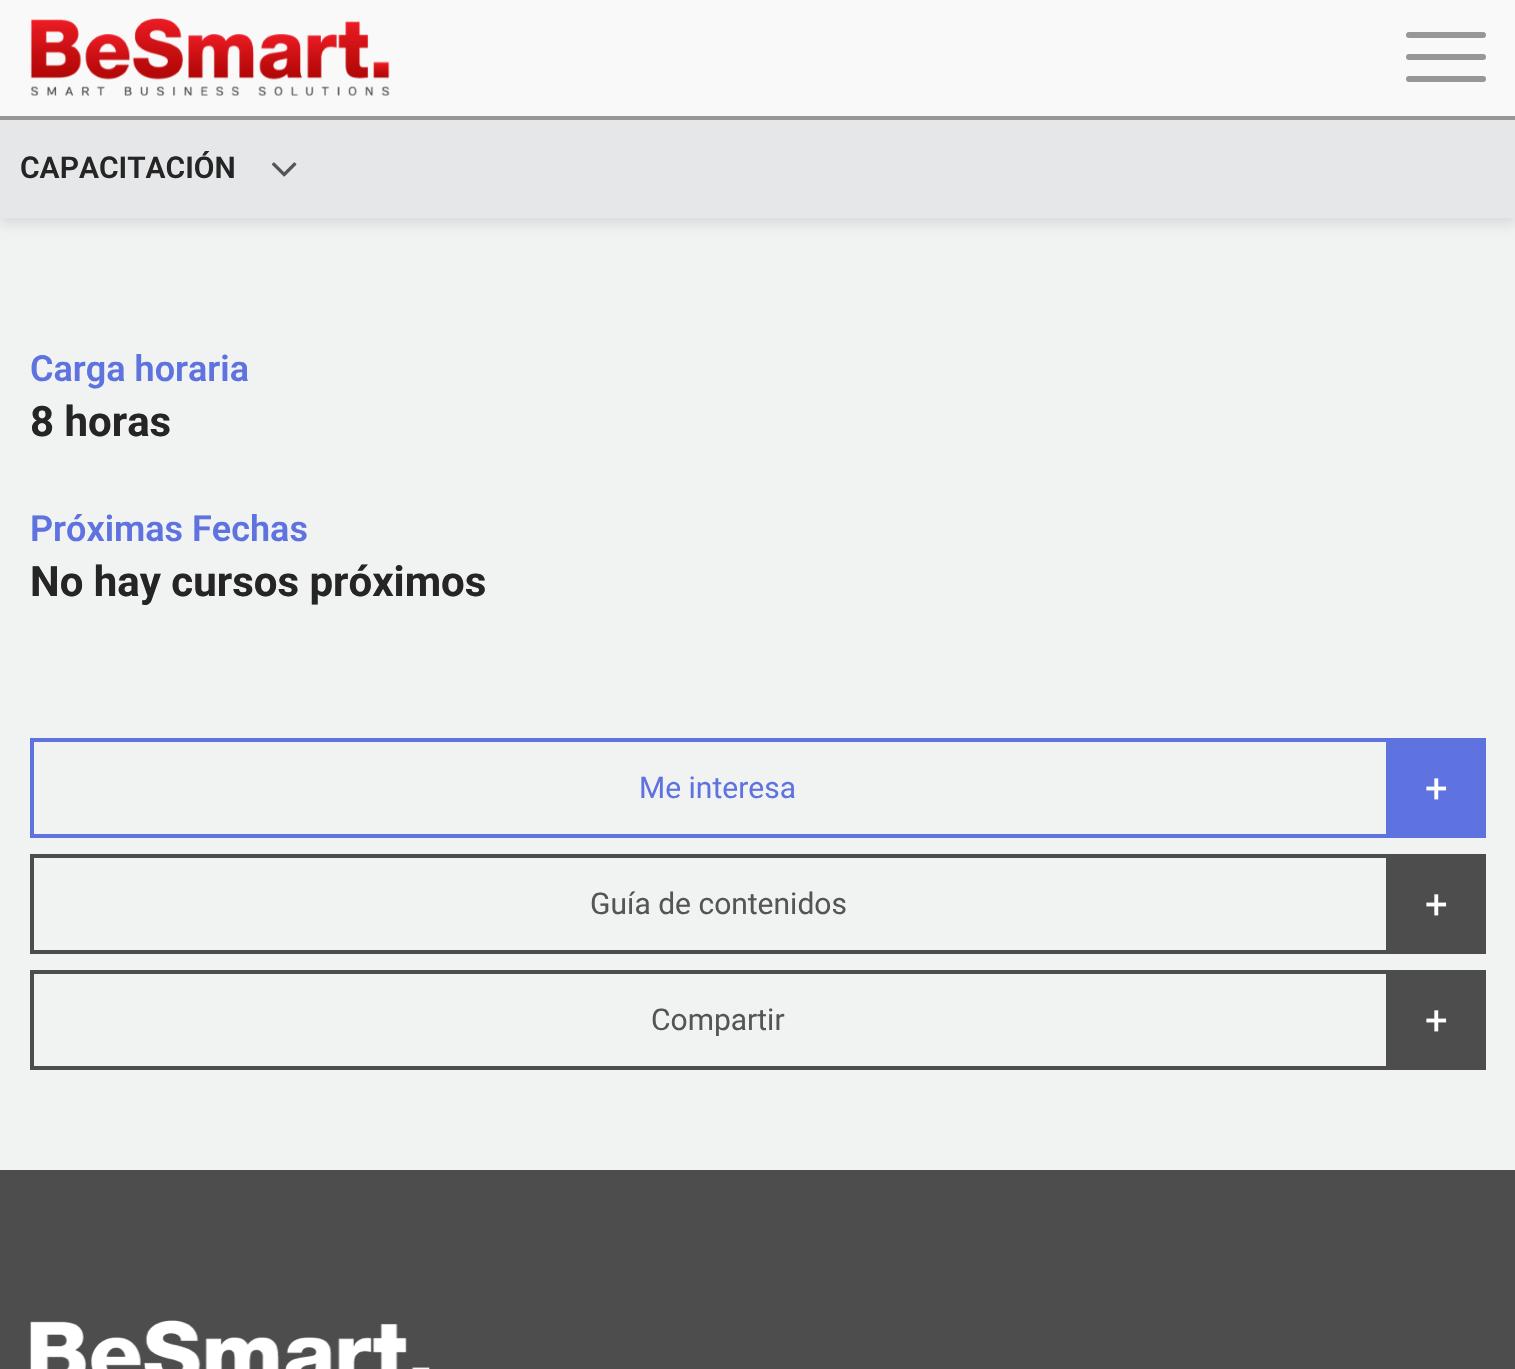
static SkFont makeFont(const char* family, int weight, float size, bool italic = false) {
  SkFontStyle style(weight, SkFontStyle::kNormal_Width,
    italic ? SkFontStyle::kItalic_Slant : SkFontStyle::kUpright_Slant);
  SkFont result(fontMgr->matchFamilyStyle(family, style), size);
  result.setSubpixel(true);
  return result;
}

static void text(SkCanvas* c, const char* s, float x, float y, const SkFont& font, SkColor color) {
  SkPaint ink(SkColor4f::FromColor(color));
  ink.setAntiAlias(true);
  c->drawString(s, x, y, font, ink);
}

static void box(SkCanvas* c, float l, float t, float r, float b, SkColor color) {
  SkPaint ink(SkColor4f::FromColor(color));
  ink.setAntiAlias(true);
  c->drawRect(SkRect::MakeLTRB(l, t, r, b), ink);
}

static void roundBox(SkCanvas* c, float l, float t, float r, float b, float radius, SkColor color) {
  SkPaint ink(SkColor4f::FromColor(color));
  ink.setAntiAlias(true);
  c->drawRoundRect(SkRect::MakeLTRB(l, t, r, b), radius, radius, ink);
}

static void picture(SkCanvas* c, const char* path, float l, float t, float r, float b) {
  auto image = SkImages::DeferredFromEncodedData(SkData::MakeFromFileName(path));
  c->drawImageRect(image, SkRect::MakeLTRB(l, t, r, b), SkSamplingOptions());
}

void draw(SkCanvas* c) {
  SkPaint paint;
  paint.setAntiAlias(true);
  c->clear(0xff4d4d4e);
  box(c, 0, 218, 1515, 1170, 0xfff1f2f2);
  paint.setColor(0x1a000000);
  paint.setMaskFilter(SkMaskFilter::MakeBlur(kNormal_SkBlurStyle, 6));
  c->drawRect(SkRect::MakeLTRB(0, 126, 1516, 224), paint);
  paint.setMaskFilter(nullptr);
  box(c, 0, 0, 1515, 116, 0xfff9f9f9);
  box(c, 0, 116, 1515, 120, 0xff979797);
  picture(c, "img_01.png", 30, 18, 390, 96);
  roundBox(c, 1406, 32, 1486, 38, 3, 0xff979797);
  roundBox(c, 1406, 54, 1486, 60, 3, 0xff979797);
  roundBox(c, 1406, 76, 1486, 82, 3, 0xff979797);
  box(c, 0, 120, 1515, 218, 0xffe6e7e8);
  SkFont face1 = makeFont("Roboto", 600, 30);
  text(c, "CAPACITACIÓN", 20, 178, face1, 0xff252525);
  picture(c, "img_02.png", 271, 162, 297, 177);
  SkFont face2 = makeFont("Roboto", 600, 36);
  text(c, "Carga horaria", 30, 381, face2, 0xff5e73e0);
  SkFont face3 = makeFont("Roboto", 700, 42);
  text(c, "8 horas", 30, 436, face3, 0xff252525);
  text(c, "Próximas Fechas", 30, 541, face2, 0xff5e73e0);
  text(c, "No hay cursos próximos", 30, 596, face3, 0xff252525);
  paint.setStyle(SkPaint::kStroke_Style);
  paint.setStrokeWidth(4);
  paint.setColor(0xff5e73e0);
  c->drawRect(SkRect::MakeLTRB(32, 740, 1484, 836), paint);
  SkFont face4 = makeFont("Roboto", 400, 30);
  text(c, "Me interesa", 639, 798, face4, 0xff5e73e0);
  box(c, 1386, 742, 1482, 834, 0xff5e73e0);
  SkFont face5 = makeFont("Roboto", 400, 40);
  text(c, "+", 1425, 802, face5, 0xffffffff);
  paint.setColor(0xff4d4d4d);
  c->drawRect(SkRect::MakeLTRB(32, 856, 1484, 952), paint);
  text(c, "Guía de contenidos", 590, 914, face4, 0xff555555);
  box(c, 1386, 858, 1482, 950, 0xff4d4d4d);
  text(c, "+", 1425, 918, face5, 0xffffffff);
  c->drawRect(SkRect::MakeLTRB(32, 972, 1484, 1068), paint);
  text(c, "Compartir", 651, 1030, face4, 0xff555555);
  box(c, 1386, 974, 1482, 1066, 0xff4d4d4d);
  text(c, "+", 1425, 1034, face5, 0xffffffff);
  picture(c, "img_03.png", 30, 1320, 430, 1369);
}
